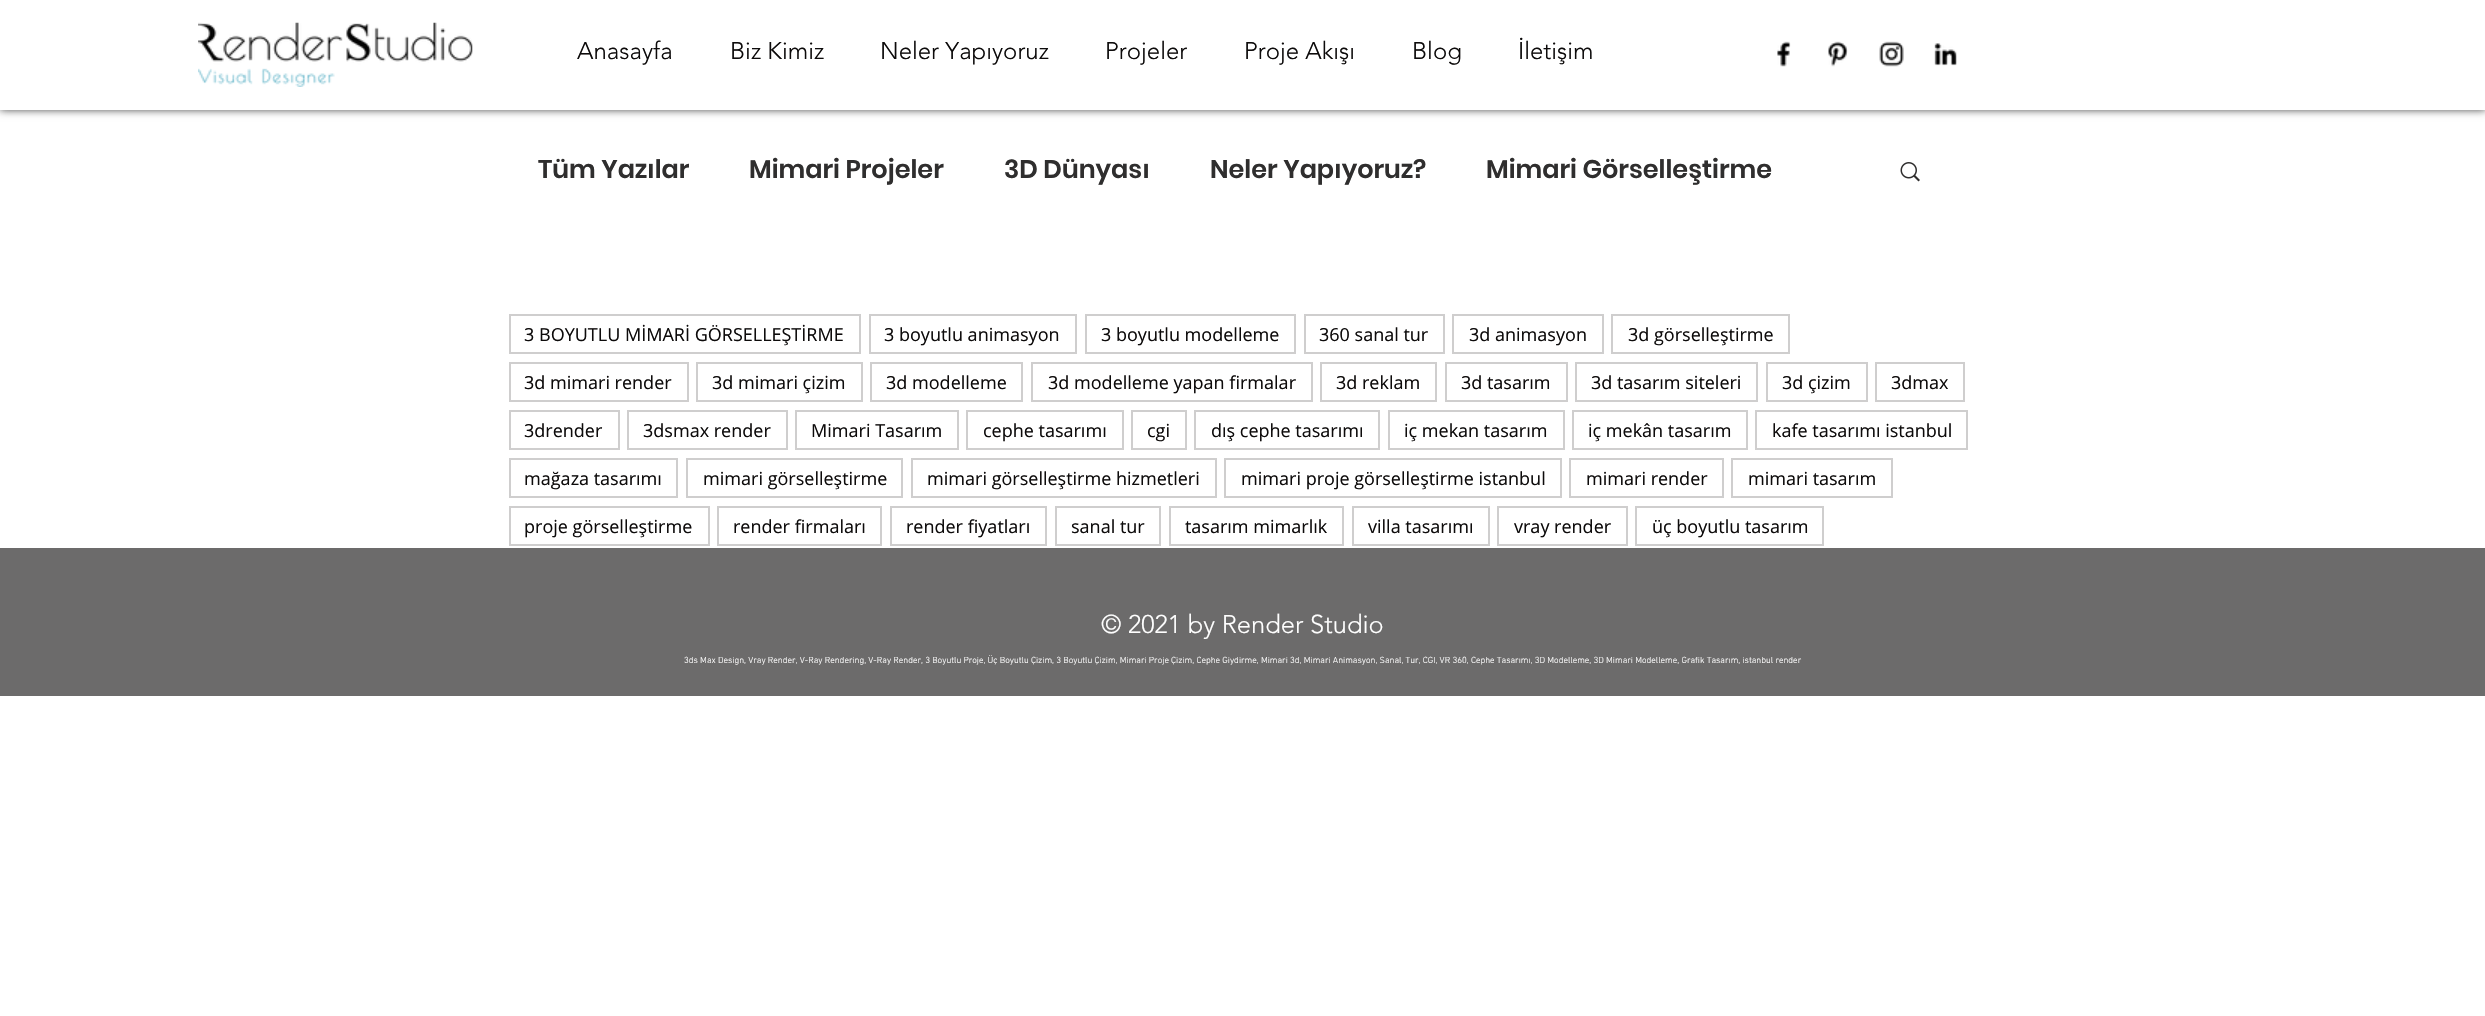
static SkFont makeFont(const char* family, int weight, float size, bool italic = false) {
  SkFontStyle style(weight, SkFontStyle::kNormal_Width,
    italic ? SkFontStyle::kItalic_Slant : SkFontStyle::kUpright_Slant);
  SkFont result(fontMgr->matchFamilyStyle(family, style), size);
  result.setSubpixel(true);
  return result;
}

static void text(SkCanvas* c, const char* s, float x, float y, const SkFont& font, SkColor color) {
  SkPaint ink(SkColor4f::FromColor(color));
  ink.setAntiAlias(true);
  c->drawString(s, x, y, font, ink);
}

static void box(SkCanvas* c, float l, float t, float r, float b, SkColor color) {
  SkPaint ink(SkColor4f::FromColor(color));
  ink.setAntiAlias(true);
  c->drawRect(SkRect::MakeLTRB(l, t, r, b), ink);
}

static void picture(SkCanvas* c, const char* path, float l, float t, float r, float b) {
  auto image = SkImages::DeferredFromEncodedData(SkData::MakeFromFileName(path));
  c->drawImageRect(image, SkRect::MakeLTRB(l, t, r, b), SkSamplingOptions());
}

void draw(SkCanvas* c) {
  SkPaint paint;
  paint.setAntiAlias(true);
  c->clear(0xffffffff);
  paint.setColor(0xb3000000);
  paint.setMaskFilter(SkMaskFilter::MakeBlur(kNormal_SkBlurStyle, 4));
  c->drawRect(SkRect::MakeLTRB(0, 0, 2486, 110), paint);
  paint.setMaskFilter(nullptr);
  box(c, 0, 0, 2485, 110, 0xffffffff);
  picture(c, "img_01.png", 198, 22, 473, 87);
  picture(c, "img_02.png", 1777, 41, 1791, 67);
  picture(c, "img_03.png", 1828, 41, 1848, 67);
  picture(c, "img_04.png", 1879, 41, 1904, 67);
  picture(c, "img_05.png", 1934, 43, 1957, 66);
  SkFont face1 = makeFont("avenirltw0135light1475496", 300, 24);
  text(c, "Anasayfa", 577, 59, face1, 0xff0d0b0b);
  text(c, "Biz Kimiz", 730, 59, face1, 0xff0d0b0b);
  text(c, "Neler Yapıyoruz", 880, 59, face1, 0xff0d0b0b);
  text(c, "Projeler", 1105, 59, face1, 0xff0d0b0b);
  text(c, "Proje Akışı", 1244, 59, face1, 0xff0d0b0b);
  text(c, "Blog", 1412, 59, face1, 0xff0d0b0b);
  text(c, "İletişim", 1518, 59, face1, 0xff0d0b0b);
  SkFont face2 = makeFont("Poppins", 600, 25.5f);
  text(c, "Tüm Yazılar", 538, 178, face2, 0xff2f2e2e);
  text(c, "Mimari Projeler", 749, 178, face2, 0xff2f2e2e);
  text(c, "3D Dünyası", 1004, 178, face2, 0xff2f2e2e);
  text(c, "Neler Yapıyoruz?", 1210, 178, face2, 0xff2f2e2e);
  text(c, "Mimari Görselleştirme", 1486, 178, face2, 0xff2f2e2e);
  picture(c, "img_06.png", 1900, 162, 1920, 182);
  paint.setStyle(SkPaint::kStroke_Style);
  paint.setStrokeWidth(2);
  paint.setColor(0xffcfcece);
  c->drawRect(SkRect::MakeLTRB(510, 315, 860, 353), paint);
  SkFont face3 = makeFont("Open Sans", 400, 18);
  text(c, "3 BOYUTLU MİMARİ GÖRSELLEŞTİRME", 524, 341, face3, 0xff0d0b0b);
  c->drawRect(SkRect::MakeLTRB(870, 315, 1076, 353), paint);
  text(c, "3 boyutlu animasyon", 884, 341, face3, 0xff0d0b0b);
  c->drawRect(SkRect::MakeLTRB(1086, 315, 1295, 353), paint);
  text(c, "3 boyutlu modelleme", 1101, 341, face3, 0xff0d0b0b);
  c->drawRect(SkRect::MakeLTRB(1305, 315, 1444, 353), paint);
  text(c, "360 sanal tur", 1319, 341, face3, 0xff0d0b0b);
  c->drawRect(SkRect::MakeLTRB(1453, 315, 1603, 353), paint);
  text(c, "3d animasyon", 1469, 341, face3, 0xff0d0b0b);
  c->drawRect(SkRect::MakeLTRB(1612, 315, 1789, 353), paint);
  text(c, "3d görselleştirme", 1628, 341, face3, 0xff0d0b0b);
  c->drawRect(SkRect::MakeLTRB(510, 363, 688, 401), paint);
  text(c, "3d mimari render", 524, 389, face3, 0xff0d0b0b);
  c->drawRect(SkRect::MakeLTRB(697, 363, 862, 401), paint);
  text(c, "3d mimari çizim", 712, 389, face3, 0xff0d0b0b);
  c->drawRect(SkRect::MakeLTRB(871, 363, 1022, 401), paint);
  text(c, "3d modelleme", 886, 389, face3, 0xff0d0b0b);
  c->drawRect(SkRect::MakeLTRB(1032, 363, 1312, 401), paint);
  text(c, "3d modelleme yapan firmalar", 1048, 389, face3, 0xff0d0b0b);
  c->drawRect(SkRect::MakeLTRB(1321, 363, 1436, 401), paint);
  text(c, "3d reklam", 1336, 389, face3, 0xff0d0b0b);
  c->drawRect(SkRect::MakeLTRB(1446, 363, 1567, 401), paint);
  text(c, "3d tasarım", 1461, 389, face3, 0xff0d0b0b);
  c->drawRect(SkRect::MakeLTRB(1576, 363, 1757, 401), paint);
  text(c, "3d tasarım siteleri", 1591, 389, face3, 0xff0d0b0b);
  c->drawRect(SkRect::MakeLTRB(1767, 363, 1867, 401), paint);
  text(c, "3d çizim", 1782, 389, face3, 0xff0d0b0b);
  c->drawRect(SkRect::MakeLTRB(1876, 363, 1964, 401), paint);
  text(c, "3dmax", 1891, 389, face3, 0xff0d0b0b);
  c->drawRect(SkRect::MakeLTRB(510, 411, 619, 449), paint);
  text(c, "3drender", 524, 437, face3, 0xff0d0b0b);
  c->drawRect(SkRect::MakeLTRB(628, 411, 787, 449), paint);
  text(c, "3dsmax render", 643, 437, face3, 0xff0d0b0b);
  c->drawRect(SkRect::MakeLTRB(796, 411, 958, 449), paint);
  text(c, "Mimari Tasarım", 811, 437, face3, 0xff0d0b0b);
  c->drawRect(SkRect::MakeLTRB(967, 411, 1123, 449), paint);
  text(c, "cephe tasarımı", 983, 437, face3, 0xff0d0b0b);
  c->drawRect(SkRect::MakeLTRB(1132, 411, 1186, 449), paint);
  text(c, "cgi", 1147, 437, face3, 0xff0d0b0b);
  c->drawRect(SkRect::MakeLTRB(1195, 411, 1379, 449), paint);
  text(c, "dış cephe tasarımı", 1211, 437, face3, 0xff0d0b0b);
  c->drawRect(SkRect::MakeLTRB(1389, 411, 1564, 449), paint);
  text(c, "iç mekan tasarım", 1404, 437, face3, 0xff0d0b0b);
  c->drawRect(SkRect::MakeLTRB(1573, 411, 1747, 449), paint);
  text(c, "iç mekân tasarım", 1588, 437, face3, 0xff0d0b0b);
  c->drawRect(SkRect::MakeLTRB(1756, 411, 1967, 449), paint);
  text(c, "kafe tasarımı istanbul", 1772, 437, face3, 0xff0d0b0b);
  c->drawRect(SkRect::MakeLTRB(510, 459, 677, 497), paint);
  text(c, "mağaza tasarımı", 524, 485, face3, 0xff0d0b0b);
  c->drawRect(SkRect::MakeLTRB(687, 459, 902, 497), paint);
  text(c, "mimari görselleştirme", 703, 485, face3, 0xff0d0b0b);
  c->drawRect(SkRect::MakeLTRB(912, 459, 1216, 497), paint);
  text(c, "mimari görselleştirme hizmetleri", 927, 485, face3, 0xff0d0b0b);
  c->drawRect(SkRect::MakeLTRB(1225, 459, 1561, 497), paint);
  text(c, "mimari proje görselleştirme istanbul", 1241, 485, face3, 0xff0d0b0b);
  c->drawRect(SkRect::MakeLTRB(1570, 459, 1723, 497), paint);
  text(c, "mimari render", 1586, 485, face3, 0xff0d0b0b);
  c->drawRect(SkRect::MakeLTRB(1732, 459, 1892, 497), paint);
  text(c, "mimari tasarım", 1748, 485, face3, 0xff0d0b0b);
  c->drawRect(SkRect::MakeLTRB(510, 507, 709, 545), paint);
  text(c, "proje görselleştirme", 524, 533, face3, 0xff0d0b0b);
  c->drawRect(SkRect::MakeLTRB(718, 507, 881, 545), paint);
  text(c, "render firmaları", 733, 533, face3, 0xff0d0b0b);
  c->drawRect(SkRect::MakeLTRB(891, 507, 1046, 545), paint);
  text(c, "render fiyatları", 906, 533, face3, 0xff0d0b0b);
  c->drawRect(SkRect::MakeLTRB(1056, 507, 1160, 545), paint);
  text(c, "sanal tur", 1071, 533, face3, 0xff0d0b0b);
  c->drawRect(SkRect::MakeLTRB(1170, 507, 1343, 545), paint);
  text(c, "tasarım mimarlık", 1185, 533, face3, 0xff0d0b0b);
  c->drawRect(SkRect::MakeLTRB(1353, 507, 1489, 545), paint);
  text(c, "villa tasarımı", 1368, 533, face3, 0xff0d0b0b);
  c->drawRect(SkRect::MakeLTRB(1498, 507, 1627, 545), paint);
  text(c, "vray render", 1514, 533, face3, 0xff0d0b0b);
  c->drawRect(SkRect::MakeLTRB(1636, 507, 1823, 545), paint);
  text(c, "üç boyutlu tasarım", 1652, 533, face3, 0xff0d0b0b);
  box(c, 0, 548, 2485, 696, 0xff6c6b6b);
  SkFont face4 = makeFont("avenirltw0135light1475496", 300, 25.5f);
  text(c, "© 2021 by Render Studio", 1101, 633, face4, 0xffffffff);
  SkFont face5 = makeFont("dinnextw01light", 300, 9);
  text(c, "3ds Max Design, Vray Render, V-Ray Rendering, V-Ray Render, 3 Boyutlu Proje, Üç Boyutlu Çizim, 3 Boyutlu Çizim, Mimari Proje Çizim, Cephe Giydirme, Mimari 3d, Mimari Animasyon, Sanal, Tur, CGI, VR 360, Cephe Tasarımı, 3D Modelleme, 3D Mimari Modelleme, Grafik Tasarım, istanbul render", 684, 663, face5, 0xffffffff);
}
